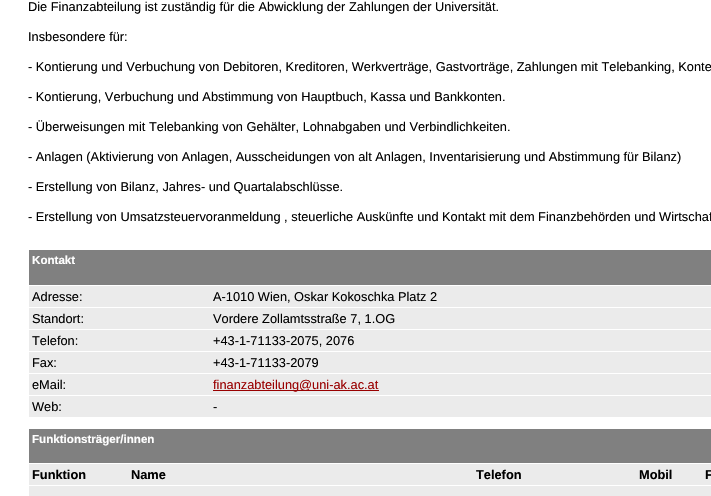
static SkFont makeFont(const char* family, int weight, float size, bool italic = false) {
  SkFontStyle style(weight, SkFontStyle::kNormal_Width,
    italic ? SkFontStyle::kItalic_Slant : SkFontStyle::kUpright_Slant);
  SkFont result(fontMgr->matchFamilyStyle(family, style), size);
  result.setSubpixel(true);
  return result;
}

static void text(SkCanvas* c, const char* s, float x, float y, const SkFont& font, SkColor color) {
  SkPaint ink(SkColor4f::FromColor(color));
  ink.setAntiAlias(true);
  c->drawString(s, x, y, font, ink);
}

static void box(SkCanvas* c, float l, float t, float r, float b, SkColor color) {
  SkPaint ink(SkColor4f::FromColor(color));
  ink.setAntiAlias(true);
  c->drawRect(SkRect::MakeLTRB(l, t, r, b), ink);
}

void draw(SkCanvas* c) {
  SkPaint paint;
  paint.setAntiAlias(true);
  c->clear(0xffffffff);
  SkFont face1 = makeFont("Liberation Sans", 400, 12.8f);
  text(c, "Die Finanzabteilung ist zuständig für die Abwicklung der Zahlungen der Universität.", 28, 11, face1, 0xff000000);
  text(c, "Insbesondere für:", 28, 41, face1, 0xff000000);
  text(c, "- Kontierung und Verbuchung von Debitoren, Kreditoren, Werkverträge, Gastvorträge, Zahlungen mit Telebanking, Konte", 28, 71, face1, 0xff000000);
  text(c, "- Kontierung, Verbuchung und Abstimmung von Hauptbuch, Kassa und Bankkonten.", 28, 101, face1, 0xff000000);
  text(c, "- Überweisungen mit Telebanking von Gehälter, Lohnabgaben und Verbindlichkeiten.", 28, 131, face1, 0xff000000);
  text(c, "- Anlagen (Aktivierung von Anlagen, Ausscheidungen von alt Anlagen, Inventarisierung und Abstimmung für Bilanz)", 28, 161, face1, 0xff000000);
  text(c, "- Erstellung von Bilanz, Jahres- und Quartalabschlüsse.", 28, 191, face1, 0xff000000);
  text(c, "- Erstellung von Umsatzsteuervoranmeldung , steuerliche Auskünfte und Kontakt mit dem Finanzbehörden und Wirtschaf", 28, 221, face1, 0xff000000);
  box(c, 29, 250, 711, 285, 0xff808080);
  SkFont face2 = makeFont("Liberation Sans", 700, 11.6f);
  text(c, "Kontakt", 32, 264, face2, 0xffffffff);
  box(c, 29, 286, 711, 307, 0xffebebeb);
  text(c, "Adresse:", 32, 301, face1, 0xff000000);
  text(c, "A-1010 Wien, Oskar Kokoschka Platz 2", 213, 301, face1, 0xff000000);
  box(c, 29, 308, 711, 329, 0xffebebeb);
  text(c, "Standort:", 32, 323, face1, 0xff000000);
  text(c, "Vordere Zollamtsstraße 7, 1.OG", 213, 323, face1, 0xff000000);
  box(c, 29, 330, 711, 351, 0xffebebeb);
  text(c, "Telefon:", 32, 345, face1, 0xff000000);
  text(c, "+43-1-71133-2075, 2076", 213, 345, face1, 0xff000000);
  box(c, 29, 352, 711, 373, 0xffebebeb);
  text(c, "Fax:", 32, 367, face1, 0xff000000);
  text(c, "+43-1-71133-2079", 213, 367, face1, 0xff000000);
  box(c, 29, 374, 711, 395, 0xffebebeb);
  text(c, "eMail:", 32, 389, face1, 0xff000000);
  box(c, 213, 390, 379, 391, 0xff990000);
  text(c, "finanzabteilung@uni-ak.ac.at", 213, 389, face1, 0xff990000);
  box(c, 29, 396, 711, 417, 0xffebebeb);
  text(c, "Web:", 32, 411, face1, 0xff000000);
  text(c, "-", 213, 411, face1, 0xff000000);
  box(c, 29, 429, 711, 463, 0xff808080);
  text(c, "Funktionsträger/innen", 32, 443, face2, 0xffffffff);
  box(c, 29, 464, 711, 485, 0xffebebeb);
  SkFont face3 = makeFont("Liberation Sans", 700, 12.8f);
  text(c, "Funktion", 32, 479, face3, 0xff000000);
  text(c, "Name", 131, 479, face3, 0xff000000);
  text(c, "Telefon", 476, 479, face3, 0xff000000);
  text(c, "Mobil", 639, 479, face3, 0xff000000);
  text(c, "F", 705, 479, face3, 0xff000000);
  box(c, 29, 486, 711, 496, 0xffebebeb);
}
